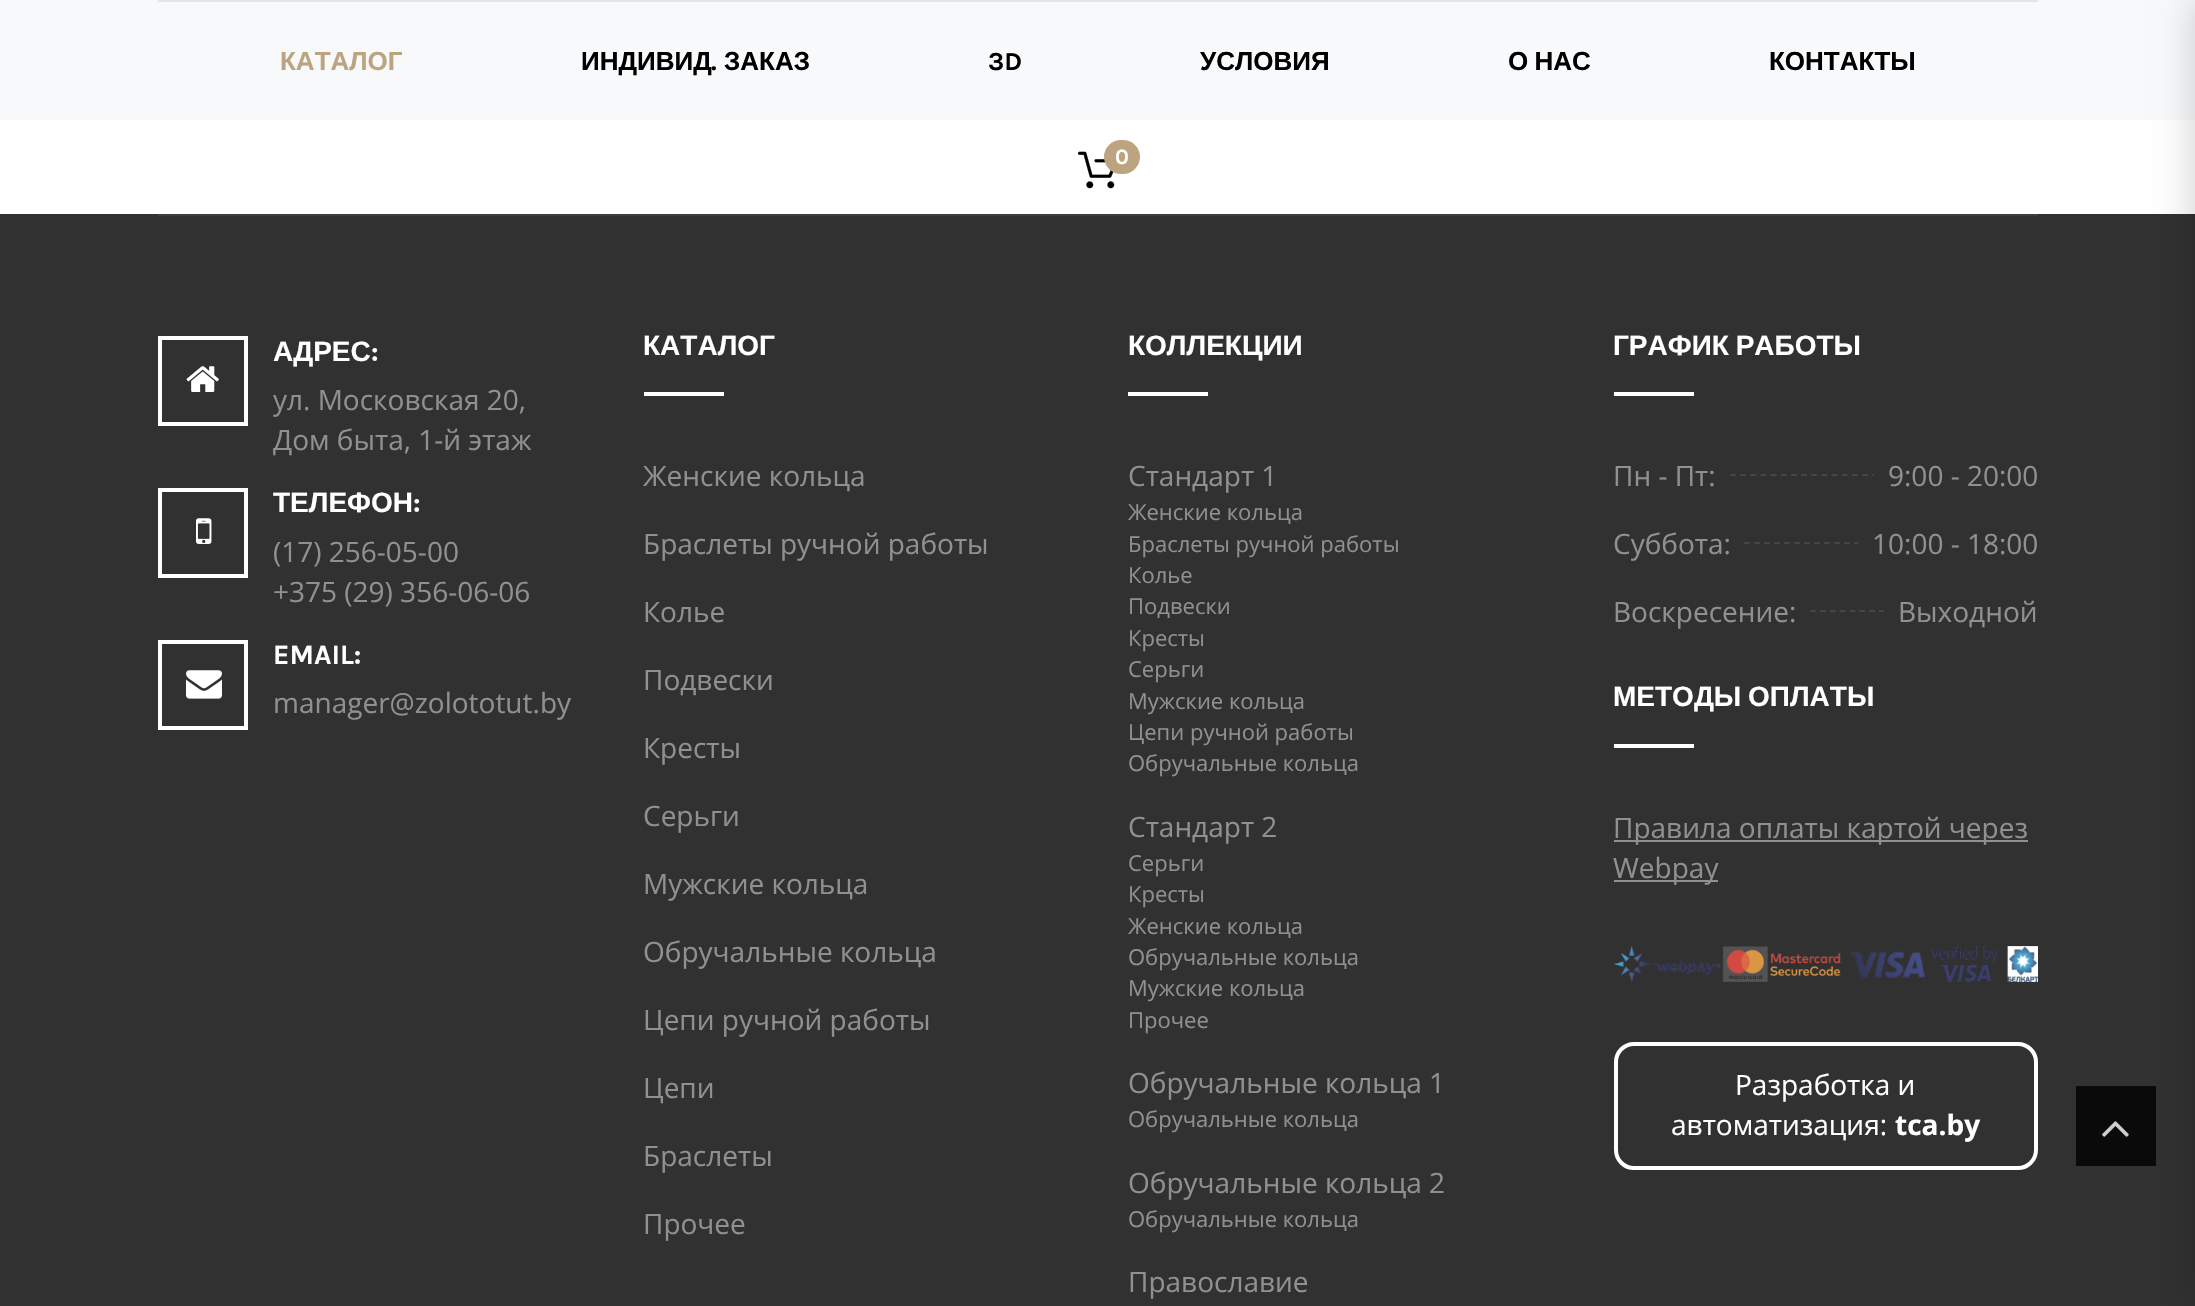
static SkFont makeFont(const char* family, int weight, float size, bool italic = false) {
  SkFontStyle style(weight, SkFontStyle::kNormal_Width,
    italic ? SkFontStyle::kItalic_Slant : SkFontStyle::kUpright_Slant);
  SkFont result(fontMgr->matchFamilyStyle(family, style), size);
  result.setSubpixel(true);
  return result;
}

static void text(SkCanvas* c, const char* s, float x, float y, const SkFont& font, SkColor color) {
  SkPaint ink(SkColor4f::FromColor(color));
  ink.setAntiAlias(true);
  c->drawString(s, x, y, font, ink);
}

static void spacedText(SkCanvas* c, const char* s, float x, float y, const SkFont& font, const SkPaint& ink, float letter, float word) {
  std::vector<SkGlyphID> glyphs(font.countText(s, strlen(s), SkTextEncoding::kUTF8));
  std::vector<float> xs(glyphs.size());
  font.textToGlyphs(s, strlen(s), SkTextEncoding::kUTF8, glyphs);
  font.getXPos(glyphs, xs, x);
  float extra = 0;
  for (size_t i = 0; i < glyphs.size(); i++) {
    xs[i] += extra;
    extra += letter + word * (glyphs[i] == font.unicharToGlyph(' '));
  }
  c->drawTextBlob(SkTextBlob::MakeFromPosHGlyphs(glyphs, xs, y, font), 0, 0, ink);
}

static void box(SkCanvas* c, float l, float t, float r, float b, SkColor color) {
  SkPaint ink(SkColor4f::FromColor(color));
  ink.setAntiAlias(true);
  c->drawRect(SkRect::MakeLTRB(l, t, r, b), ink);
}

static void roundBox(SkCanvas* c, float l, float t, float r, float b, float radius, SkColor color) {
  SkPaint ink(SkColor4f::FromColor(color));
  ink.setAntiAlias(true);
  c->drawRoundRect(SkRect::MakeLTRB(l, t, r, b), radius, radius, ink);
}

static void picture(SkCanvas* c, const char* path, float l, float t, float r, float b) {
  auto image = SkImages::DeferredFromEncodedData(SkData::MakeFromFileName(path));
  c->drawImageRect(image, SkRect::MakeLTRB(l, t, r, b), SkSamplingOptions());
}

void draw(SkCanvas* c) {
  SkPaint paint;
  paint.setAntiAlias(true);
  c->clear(0xffffffff);
  box(c, 0, 0, 2195, 120, 0xfff8f9fb);
  box(c, 158, 0, 2038, 2, 0xffe5e5e5);
  SkFont face1 = makeFont("Liberation Sans", 700, 26);
  text(c, "КАТАЛОГ", 280, 70, face1, 0xffbca480);
  text(c, "ИНДИВИД", 581, 70, face1, 0xff000000);
  SkFont face2 = makeFont("Karla", 700, 26);
  text(c, ".", 711, 70, face2, 0xff000000);
  text(c, "ЗАКАЗ", 724, 70, face1, 0xff000000);
  text(c, "3D", 988, 70, face2, 0xff000000);
  text(c, "УСЛОВИЯ", 1200, 70, face1, 0xff000000);
  paint.setColor(0xff000000);
  spacedText(c, "О НАС", 1508, 70, face1, paint, 0, -1);
  text(c, "КОНТАКТЫ", 1769, 70, face1, 0xff000000);
  picture(c, "img_01.png", 1078, 151, 1115, 189);
  roundBox(c, 1104, 140, 1140, 174, 17, 0xffbca480);
  SkFont face3 = makeFont("Karla", 700, 22);
  text(c, "0", 1115, 164, face3, 0xffffffff);
  box(c, 0, 214, 2195, 1306, 0xff313131);
  box(c, 158, 214, 2038, 216, 0xff3f3f3f);
  paint.setStyle(SkPaint::kStroke_Style);
  paint.setStrokeWidth(4);
  paint.setColor(0xffffffff);
  c->drawRect(SkRect::MakeLTRB(160, 338, 246, 424), paint);
  picture(c, "img_02.png", 186, 366, 219, 392);
  SkFont face4 = makeFont("Liberation Sans", 700, 28);
  text(c, "АДРЕС", 273, 361, face4, 0xffffffff);
  SkFont face5 = makeFont("Karla", 700, 28);
  text(c, ":", 371, 361, face5, 0xffffffff);
  SkFont face6 = makeFont("Open Sans", 400, 28);
  text(c, "ул. Московская 20,", 273, 410, face6, 0xff909090);
  text(c, "Дом быта, 1-й этаж", 273, 450, face6, 0xff909090);
  c->drawRect(SkRect::MakeLTRB(160, 490, 246, 576), paint);
  picture(c, "img_03.png", 196, 518, 212, 544);
  text(c, "ТЕЛЕФОН", 273, 512, face4, 0xffffffff);
  text(c, ":", 413, 512, face5, 0xffffffff);
  text(c, "(17) 256-05-00", 273, 562, face6, 0xff909090);
  text(c, "+375 (29) 356-06-06", 273, 602, face6, 0xff909090);
  c->drawRect(SkRect::MakeLTRB(160, 642, 246, 728), paint);
  picture(c, "img_04.png", 186, 670, 222, 699);
  text(c, "EMAIL:", 273, 664, face5, 0xffffffff);
  text(c, "manager@zolototut.by", 273, 713, face6, 0xff909090);
  text(c, "КАТАЛОГ", 643, 355, face4, 0xffffffff);
  box(c, 644, 392, 724, 396, 0xffffffff);
  text(c, "Женские кольца", 643, 486, face6, 0xff909090);
  text(c, "Браслеты ручной работы", 643, 554, face6, 0xff909090);
  text(c, "Колье", 643, 622, face6, 0xff909090);
  text(c, "Подвески", 643, 690, face6, 0xff909090);
  text(c, "Кресты", 643, 758, face6, 0xff909090);
  text(c, "Серьги", 643, 826, face6, 0xff909090);
  text(c, "Мужские кольца", 643, 894, face6, 0xff909090);
  text(c, "Обручальные кольца", 643, 962, face6, 0xff909090);
  text(c, "Цепи ручной работы", 643, 1030, face6, 0xff909090);
  text(c, "Цепи", 643, 1098, face6, 0xff909090);
  text(c, "Браслеты", 643, 1166, face6, 0xff909090);
  text(c, "Прочее", 643, 1234, face6, 0xff909090);
  text(c, "КОЛЛЕКЦИИ", 1128, 355, face4, 0xffffffff);
  box(c, 1128, 392, 1208, 396, 0xffffffff);
  text(c, "Стандарт 1", 1128, 486, face6, 0xff909090);
  SkFont face7 = makeFont("Open Sans", 400, 22);
  text(c, "Женские кольца", 1128, 520, face7, 0xff909090);
  text(c, "Браслеты ручной работы", 1128, 552, face7, 0xff909090);
  text(c, "Колье", 1128, 583, face7, 0xff909090);
  text(c, "Подвески", 1128, 614, face7, 0xff909090);
  text(c, "Кресты", 1128, 646, face7, 0xff909090);
  text(c, "Серьги", 1128, 677, face7, 0xff909090);
  text(c, "Мужские кольца", 1128, 709, face7, 0xff909090);
  text(c, "Цепи ручной работы", 1128, 740, face7, 0xff909090);
  text(c, "Обручальные кольца", 1128, 771, face7, 0xff909090);
  text(c, "Стандарт 2", 1128, 837, face6, 0xff909090);
  text(c, "Серьги", 1128, 871, face7, 0xff909090);
  text(c, "Кресты", 1128, 902, face7, 0xff909090);
  text(c, "Женские кольца", 1128, 934, face7, 0xff909090);
  text(c, "Обручальные кольца", 1128, 965, face7, 0xff909090);
  text(c, "Мужские кольца", 1128, 996, face7, 0xff909090);
  text(c, "Прочее", 1128, 1028, face7, 0xff909090);
  text(c, "Обручальные кольца 1", 1128, 1093, face6, 0xff909090);
  text(c, "Обручальные кольца", 1128, 1127, face7, 0xff909090);
  text(c, "Обручальные кольца 2", 1128, 1193, face6, 0xff909090);
  text(c, "Обручальные кольца", 1128, 1227, face7, 0xff909090);
  text(c, "Православие", 1128, 1292, face6, 0xff909090);
  paint.setStyle(SkPaint::kFill_Style);
  spacedText(c, "ГРАФИК РАБОТЫ", 1613, 355, face4, paint, 0, -1);
  box(c, 1614, 392, 1694, 396, 0xffffffff);
  text(c, "Пн - Пт:", 1613, 486, face6, 0xff909090);
  c->save();
  c->clipRect(SkRect::MakeLTRB(1614, 456, 1874, 496));
  paint.setStyle(SkPaint::kStroke_Style);
  paint.setStrokeWidth(2);
  paint.setColor(0xff464646);
  paint.setPathEffect(SkDashPathEffect::Make({{6, 4.16f}}, 0));
  c->drawPath(SkPathBuilder().moveTo(1730, 475).lineTo(1990, 475).detach(), paint);
  paint.setPathEffect(nullptr);
  c->restore();
  text(c, "9:00 - 20:00", 1888, 486, face6, 0xff909090);
  text(c, "Суббота:", 1613, 554, face6, 0xff909090);
  c->save();
  c->clipRect(SkRect::MakeLTRB(1614, 524, 1858, 564));
  paint.setPathEffect(SkDashPathEffect::Make({{6, 4}}, 0));
  c->drawPath(SkPathBuilder().moveTo(1744, 543).lineTo(1990, 543).detach(), paint);
  paint.setPathEffect(nullptr);
  c->restore();
  text(c, "10:00 - 18:00", 1872, 554, face6, 0xff909090);
  text(c, "Воскресение:", 1613, 622, face6, 0xff909090);
  c->save();
  c->clipRect(SkRect::MakeLTRB(1614, 592, 1884, 632));
  paint.setPathEffect(SkDashPathEffect::Make({{6, 3.86f}}, 0));
  c->drawPath(SkPathBuilder().moveTo(1810, 611).lineTo(2082, 611).detach(), paint);
  paint.setPathEffect(nullptr);
  c->restore();
  text(c, "Выходной", 1898, 622, face6, 0xff909090);
  paint.setStyle(SkPaint::kFill_Style);
  paint.setColor(0xffffffff);
  spacedText(c, "МЕТОДЫ ОПЛАТЫ", 1613, 706, face4, paint, 0, -1);
  box(c, 1614, 744, 1694, 748, 0xffffffff);
  box(c, 1614, 840, 2028, 842, 0xff909090);
  text(c, "Правила оплаты картой через", 1613, 838, face6, 0xff909090);
  box(c, 1614, 880, 1718, 882, 0xff909090);
  text(c, "Webpay", 1613, 878, face6, 0xff909090);
  picture(c, "img_05.png", 1614, 946, 2038, 982);
  paint.setStyle(SkPaint::kStroke_Style);
  paint.setStrokeWidth(4);
  c->drawRoundRect(SkRect::MakeLTRB(1616, 1044, 2036, 1168), 18, 18, paint);
  text(c, "Разработка и", 1735, 1095, face6, 0xffffffff);
  text(c, "автоматизация:", 1671, 1135, face6, 0xffffffff);
  SkFont face8 = makeFont("Open Sans", 700, 28);
  text(c, "tca.by", 1895, 1135, face8, 0xffffffff);
  box(c, 2076, 1086, 2156, 1166, 0xff0a0a0a);
  picture(c, "img_06.png", 2102, 1121, 2129, 1137);
  paint.setStyle(SkPaint::kFill_Style);
  paint.setColor(0x33000000);
  paint.setMaskFilter(SkMaskFilter::MakeBlur(kNormal_SkBlurStyle, 20));
  c->drawRect(SkRect::MakeLTRB(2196, 0, 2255, 1306), paint);
  paint.setMaskFilter(nullptr);
}
